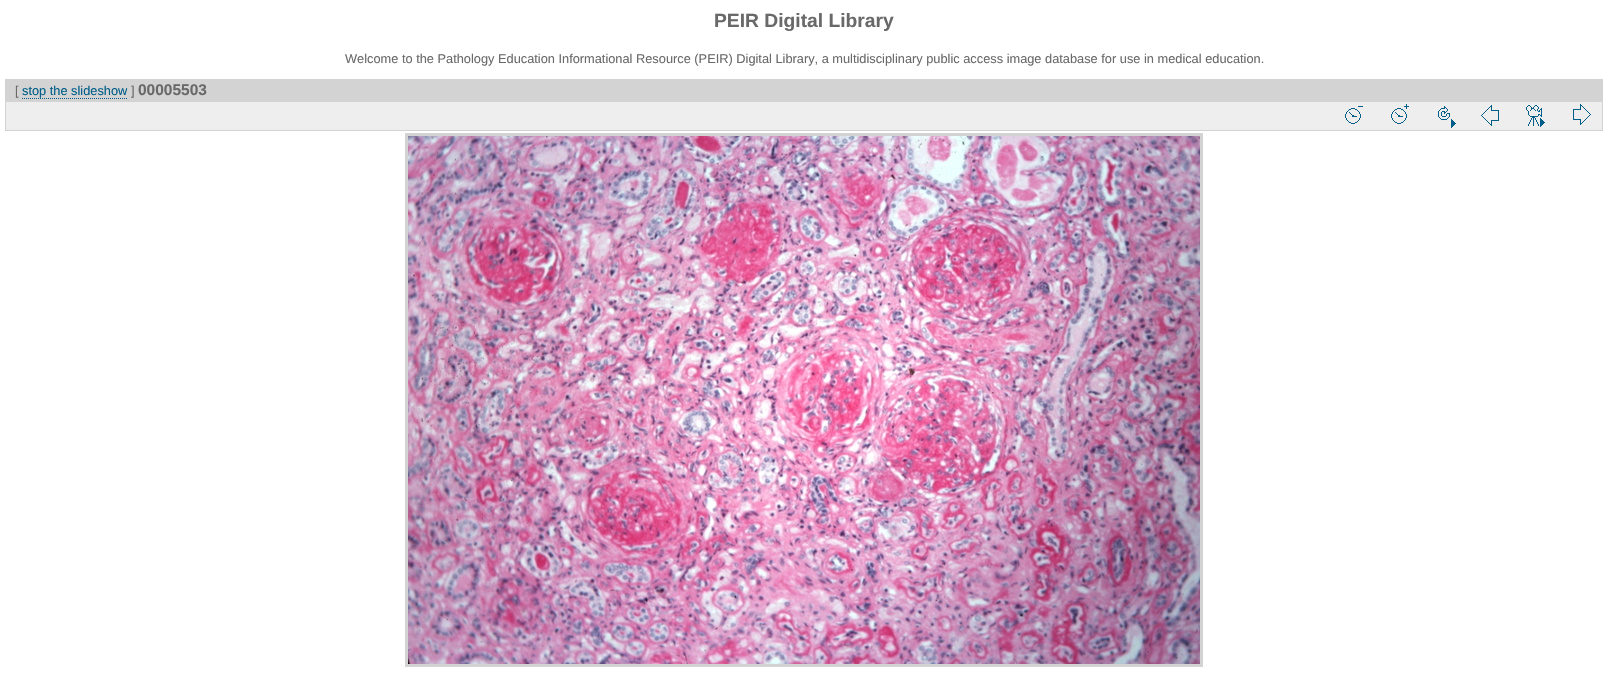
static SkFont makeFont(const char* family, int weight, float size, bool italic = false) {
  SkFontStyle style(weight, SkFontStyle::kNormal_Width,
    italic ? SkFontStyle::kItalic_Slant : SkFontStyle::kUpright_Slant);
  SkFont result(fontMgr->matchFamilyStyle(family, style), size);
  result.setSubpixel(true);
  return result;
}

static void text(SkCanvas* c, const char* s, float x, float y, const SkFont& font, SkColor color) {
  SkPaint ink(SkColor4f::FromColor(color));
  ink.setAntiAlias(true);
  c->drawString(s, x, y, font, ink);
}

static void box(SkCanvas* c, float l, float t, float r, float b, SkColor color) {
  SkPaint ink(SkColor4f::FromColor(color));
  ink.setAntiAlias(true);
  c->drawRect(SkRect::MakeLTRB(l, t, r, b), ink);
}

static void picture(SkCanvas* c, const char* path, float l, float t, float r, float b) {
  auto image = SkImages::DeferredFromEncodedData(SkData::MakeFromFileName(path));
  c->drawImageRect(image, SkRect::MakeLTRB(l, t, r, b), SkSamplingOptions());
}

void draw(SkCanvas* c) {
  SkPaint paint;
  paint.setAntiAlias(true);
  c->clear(0xffffffff);
  SkFont face1 = makeFont("Liberation Sans", 700, 19.25f);
  text(c, "PEIR Digital Library", 714, 27, face1, 0xff696969);
  SkFont face2 = makeFont("Liberation Sans", 400, 12.8f);
  text(c, "Welcome to the Pathology Education Informational Resource (PEIR) Digital Library, a multidisciplinary public access image database for use in medical education.", 345, 63, face2, 0xff696969);
  box(c, 5, 79, 1603, 101, 0xffd3d3d3);
  text(c, "[", 15, 95, face2, 0xff696969);
  text(c, "stop the slideshow", 22, 95, face2, 0xff005e89);
  paint.setStyle(SkPaint::kStroke_Style);
  paint.setStrokeWidth(1);
  paint.setColor(0xff005e89);
  paint.setPathEffect(SkDashPathEffect::Make({{1, 1}}, 0));
  c->drawPath(SkPathBuilder().moveTo(22, 98.5f).lineTo(127, 98.5f).detach(), paint);
  paint.setPathEffect(nullptr);
  text(c, "]", 131, 95, face2, 0xff696969);
  SkFont face3 = makeFont("Liberation Sans", 700, 15.5f);
  text(c, "00005503", 138, 95, face3, 0xff696969);
  paint.setStyle(SkPaint::kFill_Style);
  paint.setColor(0xffeeeeee);
  c->drawRect(SkRect::MakeLTRB(5.5f, 101.5f, 1602.5f, 130.5f), paint);
  paint.setStyle(SkPaint::kStroke_Style);
  paint.setColor(0xffd3d3d3);
  c->drawRect(SkRect::MakeLTRB(5.5f, 101.5f, 1602.5f, 130.5f), paint);
  picture(c, "img_01.png", 1345, 106, 1363, 124);
  picture(c, "img_02.png", 1391, 104, 1409, 124);
  picture(c, "img_03.png", 1438, 106, 1456, 128);
  picture(c, "img_04.png", 1481, 105, 1499, 126);
  picture(c, "img_05.png", 1526, 105, 1545, 127);
  picture(c, "img_06.png", 1573, 104, 1591, 125);
  paint.setStrokeWidth(3);
  c->drawRect(SkRect::MakeLTRB(406.5f, 134.5f, 1201.5f, 665.5f), paint);
  picture(c, "img_07.png", 408, 136, 1200, 664);
}
